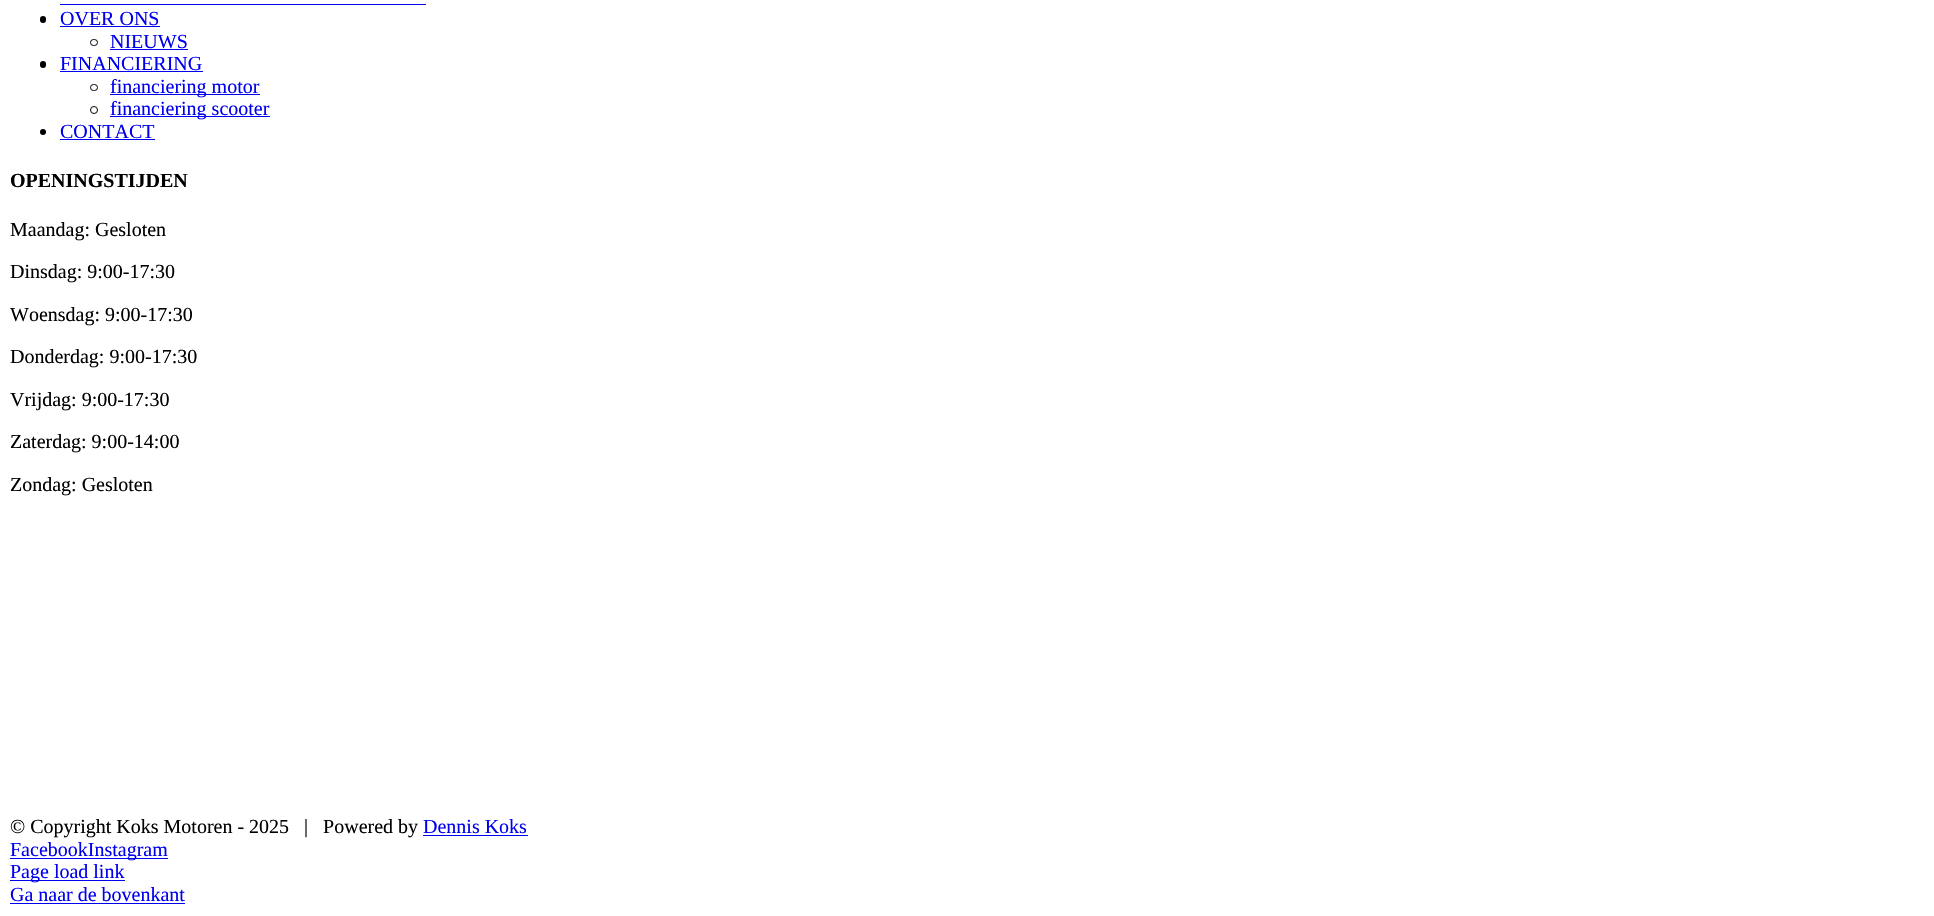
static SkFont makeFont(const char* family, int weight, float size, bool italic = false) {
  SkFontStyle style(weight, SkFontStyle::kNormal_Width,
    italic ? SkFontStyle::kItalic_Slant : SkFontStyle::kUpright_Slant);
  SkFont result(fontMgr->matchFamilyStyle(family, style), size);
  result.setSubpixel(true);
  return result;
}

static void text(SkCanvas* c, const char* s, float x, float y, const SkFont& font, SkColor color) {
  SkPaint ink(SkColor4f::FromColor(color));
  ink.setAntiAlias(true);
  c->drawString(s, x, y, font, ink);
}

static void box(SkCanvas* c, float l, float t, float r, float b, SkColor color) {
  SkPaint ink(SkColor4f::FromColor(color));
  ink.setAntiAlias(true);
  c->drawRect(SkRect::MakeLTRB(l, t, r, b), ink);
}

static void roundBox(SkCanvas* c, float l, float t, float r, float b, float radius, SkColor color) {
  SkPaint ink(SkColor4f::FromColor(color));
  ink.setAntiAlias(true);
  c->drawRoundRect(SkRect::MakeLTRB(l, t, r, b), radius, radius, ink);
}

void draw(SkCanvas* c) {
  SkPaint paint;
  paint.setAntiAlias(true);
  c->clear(0xffffffff);
  box(c, 60, 4, 426, 5, 0xff0000ee);
  roundBox(c, 40, 16, 46, 23, 3, 0xff000000);
  SkFont face1 = makeFont("Liberation Serif", 400, 20);
  text(c, "OVER ONS", 60, 25, face1, 0xff0000ee);
  box(c, 60, 26, 160, 27, 0xff0000ee);
  paint.setStyle(SkPaint::kStroke_Style);
  paint.setStrokeWidth(1);
  paint.setColor(0xff000000);
  c->drawRoundRect(SkRect::MakeLTRB(90.5f, 39.5f, 97.5f, 45.5f), 3, 3, paint);
  text(c, "NIEUWS", 110, 48, face1, 0xff0000ee);
  box(c, 110, 49, 188, 50, 0xff0000ee);
  roundBox(c, 40, 61, 46, 68, 3, 0xff000000);
  text(c, "FINANCIERING", 60, 70, face1, 0xff0000ee);
  box(c, 60, 71, 203, 72, 0xff0000ee);
  c->drawRoundRect(SkRect::MakeLTRB(90.5f, 84.5f, 97.5f, 90.5f), 3, 3, paint);
  box(c, 110, 94, 260, 95, 0xff0000ee);
  text(c, "financiering motor", 110, 93, face1, 0xff0000ee);
  c->drawCircle(94, 110, 3.5f, paint);
  box(c, 110, 116, 270, 117, 0xff0000ee);
  text(c, "financiering scooter", 110, 115, face1, 0xff0000ee);
  paint.setStyle(SkPaint::kFill_Style);
  c->drawCircle(43, 132, 3, paint);
  text(c, "CONTACT", 60, 138, face1, 0xff0000ee);
  box(c, 60, 139, 155, 140, 0xff0000ee);
  SkFont face2 = makeFont("Liberation Serif", 700, 20);
  text(c, "OPENINGSTIJDEN", 10, 187, face2, 0xff000000);
  text(c, "Maandag: Gesloten", 10, 236, face1, 0xff000000);
  text(c, "Dinsdag: 9:00-17:30", 10, 278, face1, 0xff000000);
  text(c, "Woensdag: 9:00-17:30", 10, 321, face1, 0xff000000);
  text(c, "Donderdag: 9:00-17:30", 10, 363, face1, 0xff000000);
  text(c, "Vrijdag: 9:00-17:30", 10, 406, face1, 0xff000000);
  text(c, "Zaterdag: 9:00-14:00", 10, 448, face1, 0xff000000);
  text(c, "Zondag: Gesloten", 10, 491, face1, 0xff000000);
  text(c, "© Copyright Koks Motoren - 2025   |   Powered by", 10, 833, face1, 0xff000000);
  text(c, "Dennis Koks", 423, 833, face1, 0xff0000ee);
  box(c, 423, 835, 528, 836, 0xff0000ee);
  box(c, 10, 858, 168, 859, 0xff0000ee);
  text(c, "FacebookInstagram", 10, 856, face1, 0xff0000ee);
  box(c, 10, 880, 125, 881, 0xff0000ee);
  text(c, "Page load link", 10, 878, face1, 0xff0000ee);
  text(c, "Ga naar de bovenkant", 10, 901, face1, 0xff0000ee);
  box(c, 10, 903, 185, 904, 0xff0000ee);
}
